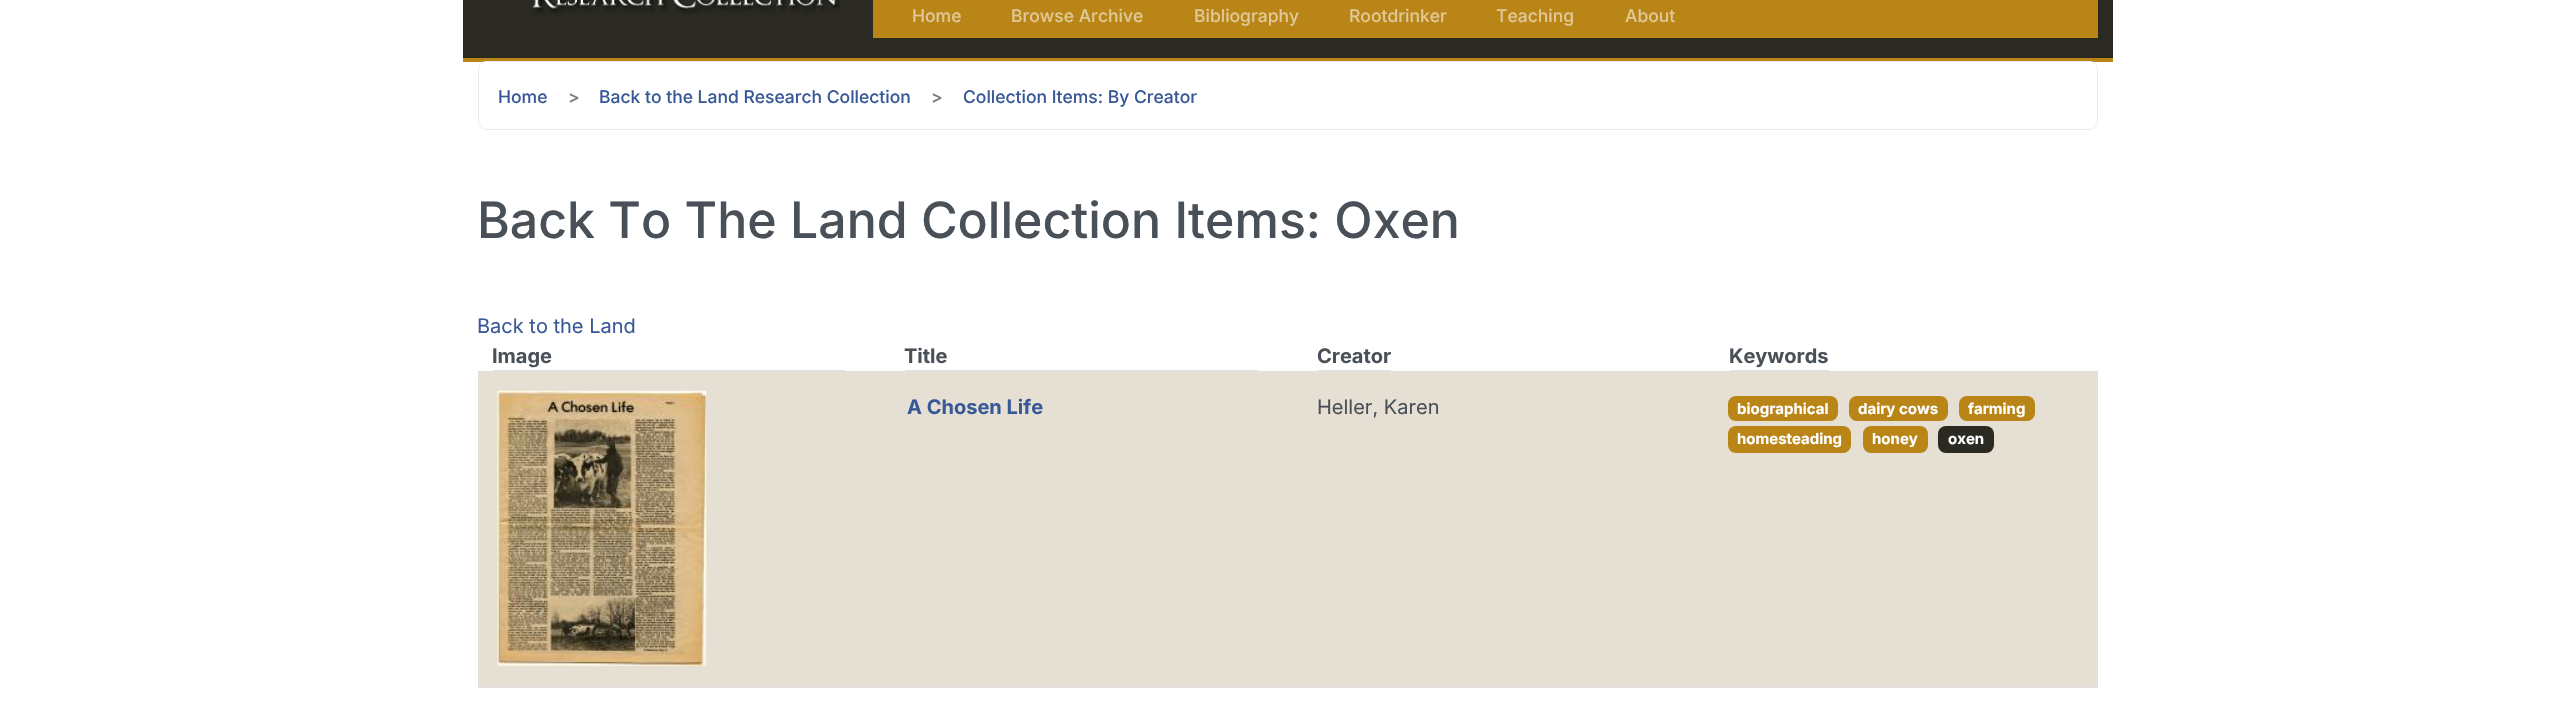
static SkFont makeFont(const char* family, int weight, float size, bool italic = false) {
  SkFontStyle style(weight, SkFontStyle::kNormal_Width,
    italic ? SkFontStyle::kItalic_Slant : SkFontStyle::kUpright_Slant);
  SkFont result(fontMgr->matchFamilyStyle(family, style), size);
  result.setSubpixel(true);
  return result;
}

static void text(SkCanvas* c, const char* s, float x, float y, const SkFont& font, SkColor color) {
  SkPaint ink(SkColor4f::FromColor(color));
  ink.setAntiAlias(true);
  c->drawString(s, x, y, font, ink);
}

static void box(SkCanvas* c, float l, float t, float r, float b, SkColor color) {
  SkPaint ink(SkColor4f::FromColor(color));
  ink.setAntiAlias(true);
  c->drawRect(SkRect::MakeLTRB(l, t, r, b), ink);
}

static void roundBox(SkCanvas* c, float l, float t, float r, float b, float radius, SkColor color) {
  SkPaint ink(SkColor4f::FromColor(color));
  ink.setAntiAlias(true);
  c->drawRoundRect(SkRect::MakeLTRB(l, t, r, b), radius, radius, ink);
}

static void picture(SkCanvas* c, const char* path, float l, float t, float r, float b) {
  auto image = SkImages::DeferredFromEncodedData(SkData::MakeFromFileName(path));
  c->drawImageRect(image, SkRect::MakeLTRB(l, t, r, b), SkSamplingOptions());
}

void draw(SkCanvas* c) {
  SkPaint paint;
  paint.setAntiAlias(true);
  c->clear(0xffffffff);
  box(c, 463, 0, 2113, 58, 0xff2a2922);
  box(c, 463, 58, 2113, 62, 0xffb98517);
  picture(c, "img_01.png", 532, 0, 840, 14);
  box(c, 873, 0, 2098, 38, 0xffb98517);
  SkFont face1 = makeFont("Inter", 500, 17.5f);
  text(c, "Home", 912, 22, face1, 0xffe0c897);
  text(c, "Browse Archive", 1011, 22, face1, 0xffe0c897);
  text(c, "Bibliography", 1194, 22, face1, 0xffe0c897);
  text(c, "Rootdrinker", 1349, 22, face1, 0xffe0c897);
  text(c, "Teaching", 1496, 22, face1, 0xffe0c897);
  text(c, "About", 1625, 22, face1, 0xffe0c897);
  paint.setStyle(SkPaint::kStroke_Style);
  paint.setStrokeWidth(1);
  paint.setColor(0xffe9ecef);
  c->drawRoundRect(SkRect::MakeLTRB(478.5f, 61.5f, 2097.5f, 129.5f), 7.5f, 7.5f, paint);
  text(c, "Home", 498, 103, face1, 0xff385898);
  text(c, ">", 568, 103, face1, 0xff777c81);
  text(c, "Back to the Land Research Collection", 599, 103, face1, 0xff385898);
  text(c, ">", 931, 103, face1, 0xff777c81);
  text(c, "Collection Items: By Creator", 963, 103, face1, 0xff385898);
  SkFont face2 = makeFont("Inter", 500, 50);
  text(c, "Back To The Land Collection Items: Oxen", 477, 238, face2, 0xff495057);
  SkFont face3 = makeFont("Inter", 400, 20);
  text(c, "Back to the Land", 477, 333, face3, 0xff385898);
  box(c, 493, 370, 845, 371, 0xffdee2e6);
  SkFont face4 = makeFont("Inter", 700, 20);
  text(c, "Image", 492, 363, face4, 0xff495057);
  box(c, 905, 370, 1258, 371, 0xffdee2e6);
  text(c, "Title", 904, 363, face4, 0xff495057);
  box(c, 1318, 370, 1391, 371, 0xffdee2e6);
  text(c, "Creator", 1317, 363, face4, 0xff495057);
  box(c, 1730, 370, 1829, 371, 0xffdee2e6);
  text(c, "Keywords", 1729, 363, face4, 0xff495057);
  box(c, 478, 371, 2098, 688, 0xffe5e0d3);
  box(c, 478, 686, 2098, 687, 0xffdee2e6);
  picture(c, "img_02.png", 497, 390, 707, 666);
  text(c, "A Chosen Life", 907, 414, face4, 0xff385898);
  text(c, "Heller, Karen", 1317, 414, face3, 0xff495057);
  roundBox(c, 1728, 396, 1838, 421, 8, 0xffb98517);
  SkFont face5 = makeFont("Inter", 700, 15);
  text(c, "biographical", 1737, 414, face5, 0xffffffff);
  roundBox(c, 1849, 396, 1948, 421, 8, 0xffb98517);
  text(c, "dairy cows", 1858, 414, face5, 0xffffffff);
  roundBox(c, 1959, 396, 2035, 421, 8, 0xffb98517);
  text(c, "farming", 1968, 414, face5, 0xffffffff);
  roundBox(c, 1728, 426, 1851, 453, 8, 0xffb98517);
  text(c, "homesteading", 1737, 444, face5, 0xffffffff);
  roundBox(c, 1863, 426, 1928, 453, 8, 0xffb98517);
  text(c, "honey", 1872, 444, face5, 0xffffffff);
  roundBox(c, 1938, 426, 1994, 453, 8, 0xff2a2922);
  text(c, "oxen", 1948, 444, face5, 0xffffffff);
}
